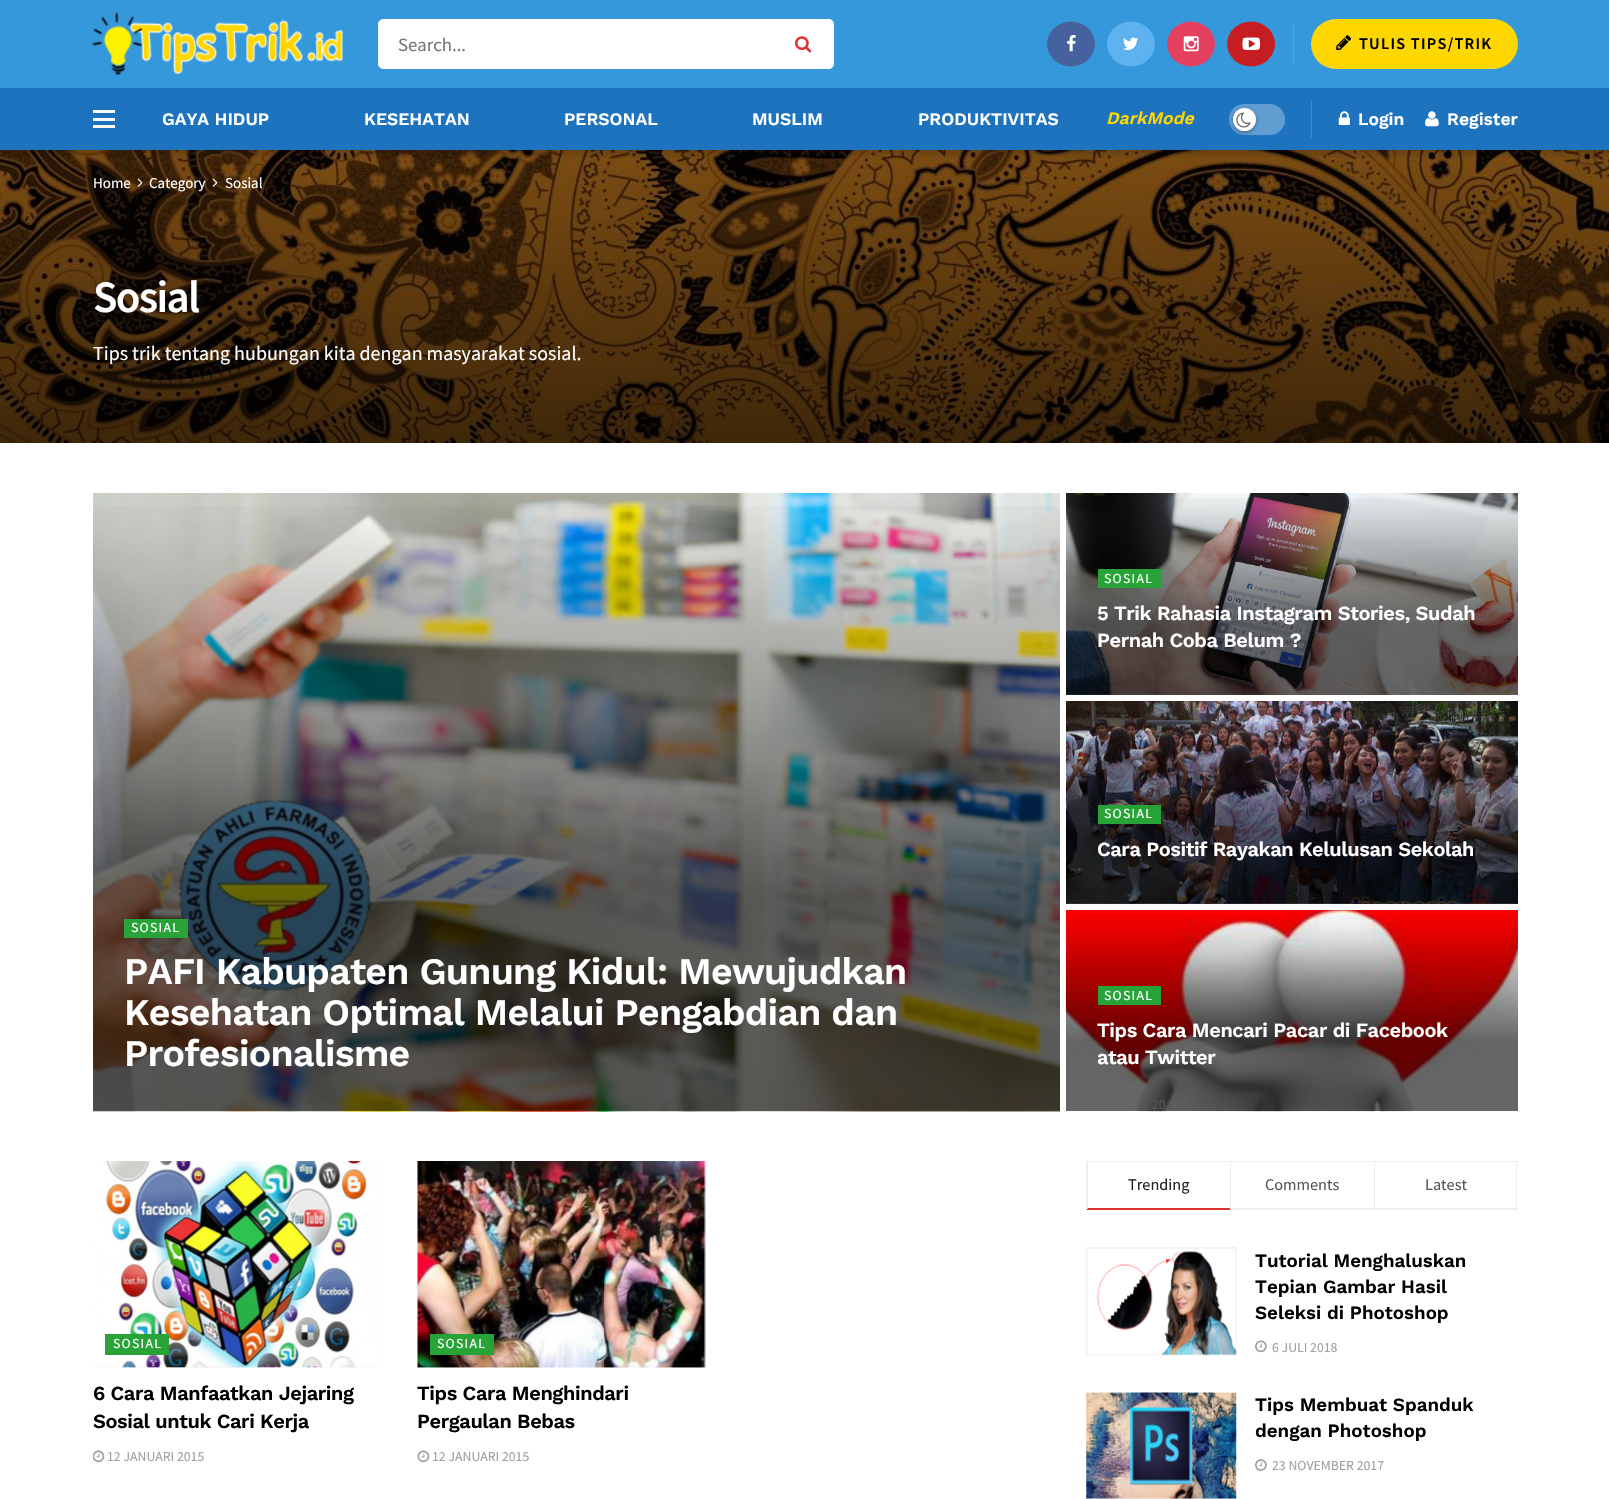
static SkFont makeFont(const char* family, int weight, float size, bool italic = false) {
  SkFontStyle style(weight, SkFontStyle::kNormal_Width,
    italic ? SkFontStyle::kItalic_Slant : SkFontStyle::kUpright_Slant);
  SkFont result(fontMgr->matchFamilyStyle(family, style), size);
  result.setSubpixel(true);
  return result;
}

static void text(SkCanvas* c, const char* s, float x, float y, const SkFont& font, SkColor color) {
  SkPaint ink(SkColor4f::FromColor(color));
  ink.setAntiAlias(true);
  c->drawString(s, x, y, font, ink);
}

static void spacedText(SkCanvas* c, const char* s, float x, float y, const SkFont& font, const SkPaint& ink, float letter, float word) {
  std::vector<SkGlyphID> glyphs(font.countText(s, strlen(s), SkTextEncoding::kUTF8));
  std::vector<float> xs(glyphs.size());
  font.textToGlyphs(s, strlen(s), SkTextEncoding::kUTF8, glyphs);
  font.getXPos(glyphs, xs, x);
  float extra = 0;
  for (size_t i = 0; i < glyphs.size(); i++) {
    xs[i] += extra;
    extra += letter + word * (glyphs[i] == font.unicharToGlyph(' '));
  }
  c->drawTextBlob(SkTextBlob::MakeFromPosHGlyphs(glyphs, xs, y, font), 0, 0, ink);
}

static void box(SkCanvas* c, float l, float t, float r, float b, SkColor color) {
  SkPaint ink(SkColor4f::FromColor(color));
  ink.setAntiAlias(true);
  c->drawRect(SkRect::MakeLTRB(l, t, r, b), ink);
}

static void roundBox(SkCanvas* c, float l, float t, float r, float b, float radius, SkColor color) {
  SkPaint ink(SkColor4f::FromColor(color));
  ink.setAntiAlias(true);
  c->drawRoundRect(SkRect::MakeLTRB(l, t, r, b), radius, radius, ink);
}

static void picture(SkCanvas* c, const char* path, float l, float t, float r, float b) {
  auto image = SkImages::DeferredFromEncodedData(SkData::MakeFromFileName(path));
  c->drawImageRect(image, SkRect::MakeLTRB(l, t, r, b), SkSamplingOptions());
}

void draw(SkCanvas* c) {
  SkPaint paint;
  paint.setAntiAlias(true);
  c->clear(0xffffffff);
  box(c, 0, 0, 1609, 88, 0xff3498db);
  picture(c, "img_01.png", 92, 12, 343, 75);
  paint.setColor(0xffffffff);
  c->drawRoundRect(SkRect::MakeLTRB(378.5f, 19.5f, 833.5f, 68.5f), 4.5f, 4.5f, paint);
  paint.setStyle(SkPaint::kStroke_Style);
  paint.setStrokeWidth(1);
  c->drawRoundRect(SkRect::MakeLTRB(378.5f, 19.5f, 833.5f, 68.5f), 4.5f, 4.5f, paint);
  SkFont face1 = makeFont("Source Sans Pro", 400, 18.75f);
  text(c, "Search...", 398, 51, face1, 0xff757575);
  picture(c, "img_02.png", 795, 36, 812, 53);
  paint.setStyle(SkPaint::kFill_Style);
  paint.setColor(0xff45629f);
  c->drawOval(SkRect::MakeLTRB(1047, 21.5f, 1095, 66.5f), paint);
  picture(c, "img_03.png", 1067, 35, 1076, 52);
  paint.setColor(0xff5eb2ef);
  c->drawOval(SkRect::MakeLTRB(1107, 21.5f, 1155, 66.5f), paint);
  picture(c, "img_04.png", 1123, 37, 1139, 50);
  paint.setColor(0xffe4405f);
  c->drawOval(SkRect::MakeLTRB(1167, 21.5f, 1215, 66.5f), paint);
  picture(c, "img_05.png", 1183, 36, 1199, 52);
  paint.setColor(0xffc61d23);
  c->drawOval(SkRect::MakeLTRB(1227, 21.5f, 1275, 66.5f), paint);
  picture(c, "img_06.png", 1242, 37, 1260, 50);
  box(c, 1293, 25, 1294, 63, 0xff52a7e0);
  roundBox(c, 1311, 19, 1518, 69, 25, 0xffffd700);
  picture(c, "img_07.png", 1336, 35, 1351, 50);
  SkFont face2 = makeFont("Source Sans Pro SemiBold", 600, 16.25f);
  paint.setColor(0xff000000);
  spacedText(c, "TULIS TIPS/TRIK", 1359, 49, face2, paint, 1.25f, 0);
  box(c, 0, 88, 1609, 150, 0xff1e73be);
  box(c, 93, 110, 115, 113, 0xfffafafa);
  box(c, 93, 118, 115, 121, 0xfffafafa);
  box(c, 93, 125, 115, 128, 0xfffafafa);
  SkFont face3 = makeFont("Work Sans", 600, 17.5f);
  text(c, "GAYA HIDUP", 162, 125, face3, 0xffffffff);
  text(c, "KESEHATAN", 364, 125, face3, 0xffffffff);
  text(c, "PERSONAL", 564, 125, face3, 0xffffffff);
  text(c, "MUSLIM", 752, 125, face3, 0xffffffff);
  text(c, "PRODUKTIVITAS", 918, 125, face3, 0xffffffff);
  SkFont face4 = makeFont("Work Sans", 600, 17.5f, true);
  text(c, "DarkMode", 1106, 124, face4, 0xffffd700);
  roundBox(c, 1229, 104, 1285, 135, 15.5f, 0xff629dd2);
  paint.setColor(0x4d000000);
  paint.setMaskFilter(SkMaskFilter::MakeBlur(kNormal_SkBlurStyle, 2));
  c->drawRoundRect(SkRect::MakeLTRB(1233, 109, 1256, 133), 11.5f, 11.5f, paint);
  paint.setMaskFilter(nullptr);
  paint.setColor(0xffffffff);
  c->drawCircle(1244.5f, 119.5f, 11.5f, paint);
  picture(c, "img_08.png", 1236, 112, 1251, 128);
  box(c, 1311, 100, 1312, 138, 0xff4088c8);
  picture(c, "img_09.png", 1338, 111, 1350, 125);
  text(c, "Login", 1358, 125, face3, 0xffffffff);
  picture(c, "img_10.png", 1425, 111, 1439, 127);
  text(c, "Register", 1447, 125, face3, 0xffffffff);
  picture(c, "img_11.png", 0, 150, 1609, 443);
  SkFont face5 = makeFont("Source Sans Pro", 400, 15);
  text(c, "Home", 93, 188, face5, 0xffffffff);
  picture(c, "img_12.png", 137, 178, 143, 187);
  text(c, "Category", 149, 188, face5, 0xffffffff);
  picture(c, "img_13.png", 212, 178, 218, 187);
  text(c, "Sosial", 225, 188, face5, 0xffffffff);
  SkFont face6 = makeFont("Source Sans Pro SemiBold", 600, 45);
  spacedText(c, "Sosial", 93, 312, face6, paint, -1.75f, 0);
  SkFont face7 = makeFont("Source Sans Pro", 400, 20);
  text(c, "Tips trik tentang hubungan kita dengan masyarakat sosial.", 93, 360, face7, 0xffffffff);
  picture(c, "img_14.png", 93, 493, 1060, 1112);
  {
    const SkColor colors[] = {0x00000000, 0x99000000, 0x99000000};
    const float stops[] = {0, 0.65f, 1};
    const SkPoint ends[] = {{557, 492}, {558, 1111}};
    paint.setShader(SkGradientShader::MakeLinear(ends, colors, stops, 3, SkTileMode::kClamp));
    paint.setAlpha(255);
  }
  c->drawRect(SkRect::MakeLTRB(93, 506, 1060, 1111), paint);
  box(c, 124, 919, 188, 938, 0xff28a337);
  SkFont face8 = makeFont("Source Sans Pro", 400, 13.75f);
  paint.setShader(nullptr);
  paint.setColor(0xffffffff);
  spacedText(c, "SOSIAL", 131, 932, face8, paint, 1.25f, 0);
  SkFont face9 = makeFont("Work Sans", 600, 37.5f);
  spacedText(c, "PAFI Kabupaten Gunung Kidul: Mewujudkan", 124, 984, face9, paint, -0.75f, 0);
  spacedText(c, "Kesehatan Optimal Melalui Pengabdian dan", 124, 1025, face9, paint, -0.75f, 0);
  spacedText(c, "Profesionalisme", 124, 1066, face9, paint, -0.75f, 0);
  picture(c, "img_15.png", 1066, 493, 1518, 695);
  {
    const SkColor colors[] = {0x00000000, 0x99000000, 0x99000000};
    const float stops[] = {0, 0.65f, 1};
    const SkPoint ends[] = {{1273, 493}, {1273, 695}};
    paint.setShader(SkGradientShader::MakeLinear(ends, colors, stops, 3, SkTileMode::kClamp));
    paint.setAlpha(255);
  }
  c->drawRect(SkRect::MakeLTRB(1066, 498, 1518, 695), paint);
  box(c, 1098, 569, 1161, 588, 0xff28a337);
  paint.setShader(nullptr);
  paint.setColor(0xffffffff);
  spacedText(c, "SOSIAL", 1104, 583, face8, paint, 1.25f, 0);
  SkFont face10 = makeFont("Work Sans", 600, 20);
  spacedText(c, "5 Trik Rahasia Instagram Stories, Sudah", 1097, 620, face10, paint, -0.4f, 0);
  spacedText(c, "Pernah Coba Belum ?", 1097, 647, face10, paint, -0.4f, 0);
  picture(c, "img_16.png", 1066, 701, 1518, 904);
  {
    const SkColor colors[] = {0x00000000, 0x99000000, 0x99000000};
    const float stops[] = {0, 0.65f, 1};
    const SkPoint ends[] = {{1273, 701}, {1273, 904}};
    paint.setShader(SkGradientShader::MakeLinear(ends, colors, stops, 3, SkTileMode::kClamp));
    paint.setAlpha(255);
  }
  c->drawRect(SkRect::MakeLTRB(1066, 706, 1518, 904), paint);
  box(c, 1098, 805, 1161, 824, 0xff28a337);
  paint.setShader(nullptr);
  paint.setColor(0xffffffff);
  spacedText(c, "SOSIAL", 1104, 818, face8, paint, 1.25f, 0);
  spacedText(c, "Cara Positif Rayakan Kelulusan Sekolah", 1097, 856, face10, paint, -0.4f, 0);
  picture(c, "img_17.png", 1066, 910, 1518, 1112);
  box(c, 1098, 986, 1161, 1005, 0xff28a337);
  spacedText(c, "SOSIAL", 1104, 1000, face8, paint, 1.25f, 0);
  spacedText(c, "Tips Cara Mencari Pacar di Facebook", 1097, 1037, face10, paint, -0.4f, 0);
  spacedText(c, "atau Twitter", 1097, 1064, face10, paint, -0.4f, 0);
  text(c, "20", 1152, 1109, face8, 0xff53585c);
  box(c, 93, 1161, 380, 1368, 0xfff7f7f7);
  picture(c, "img_18.png", 93, 1161, 380, 1368);
  box(c, 105, 1334, 169, 1355, 0xff28a337);
  spacedText(c, "SOSIAL", 113, 1348, face8, paint, 1.25f, 0);
  paint.setColor(0xff000000);
  spacedText(c, "6 Cara Manfaatkan Jejaring", 93, 1400, face10, paint, -0.4f, 0);
  spacedText(c, "Sosial untuk Cari Kerja", 93, 1428, face10, paint, -0.4f, 0);
  picture(c, "img_19.png", 93, 1450, 105, 1463);
  text(c, "12 JANUARI 2015", 107, 1461, face8, 0xffa0a0a0);
  box(c, 418, 1161, 705, 1368, 0xfff7f7f7);
  picture(c, "img_20.png", 417, 1161, 706, 1368);
  box(c, 430, 1334, 494, 1355, 0xff28a337);
  paint.setColor(0xffffffff);
  spacedText(c, "SOSIAL", 437, 1348, face8, paint, 1.25f, 0);
  paint.setColor(0xff000000);
  spacedText(c, "Tips Cara Menghindari", 417, 1400, face10, paint, -0.4f, 0);
  spacedText(c, "Pergaulan Bebas", 417, 1428, face10, paint, -0.4f, 0);
  picture(c, "img_21.png", 417, 1450, 430, 1463);
  text(c, "12 JANUARI 2015", 432, 1461, face8, 0xffa0a0a0);
  box(c, 1086, 1161, 1518, 1162, 0xffeeeeee);
  paint.setColor(0xffdd3333);
  c->drawPath(SkPathBuilder().moveTo(1230, 1210).lineTo(1086, 1210).lineTo(1088, 1208).lineTo(1230, 1208).close().detach(), paint);
  paint.setColor(0xffeeeeee);
  c->drawPath(SkPathBuilder().moveTo(1086, 1210).lineTo(1086, 1161).lineTo(1088, 1162).lineTo(1088, 1208).close().detach(), paint);
  SkFont face11 = makeFont("Source Sans Pro", 400, 16.25f);
  text(c, "Trending", 1128, 1190, face11, 0xff212121);
  box(c, 1230, 1208, 1374, 1210, 0xffeeeeee);
  box(c, 1230, 1161, 1231, 1210, 0xffeeeeee);
  text(c, "Comments", 1265, 1190, face11, 0xff53585c);
  box(c, 1516, 1161, 1517, 1210, 0xffeeeeee);
  box(c, 1374, 1208, 1518, 1210, 0xffeeeeee);
  box(c, 1374, 1161, 1375, 1210, 0xffeeeeee);
  text(c, "Latest", 1425, 1190, face11, 0xff53585c);
  box(c, 1086, 1248, 1236, 1355, 0xfff7f7f7);
  box(c, 1087, 1247, 1236, 1248, 0xfffbfbfb);
  picture(c, "img_22.png", 1086, 1247, 1237, 1356);
  SkFont face12 = makeFont("Work Sans", 600, 18.75f);
  text(c, "Tutorial Menghaluskan", 1255, 1267, face12, 0xff000000);
  text(c, "Tepian Gambar Hasil", 1255, 1293, face12, 0xff000000);
  text(c, "Seleksi di Photoshop", 1255, 1319, face12, 0xff000000);
  picture(c, "img_23.png", 1255, 1340, 1267, 1353);
  text(c, "6 JULI 2018", 1272, 1352, face8, 0xffa0a0a0);
  box(c, 1086, 1393, 1236, 1499, 0xfff7f7f7);
  picture(c, "img_24.png", 1086, 1392, 1237, 1499);
  text(c, "Tips Membuat Spanduk", 1255, 1411, face12, 0xff000000);
  text(c, "dengan Photoshop", 1255, 1437, face12, 0xff000000);
  picture(c, "img_25.png", 1255, 1459, 1267, 1471);
  text(c, "23 NOVEMBER 2017", 1272, 1470, face8, 0xffa0a0a0);
}
